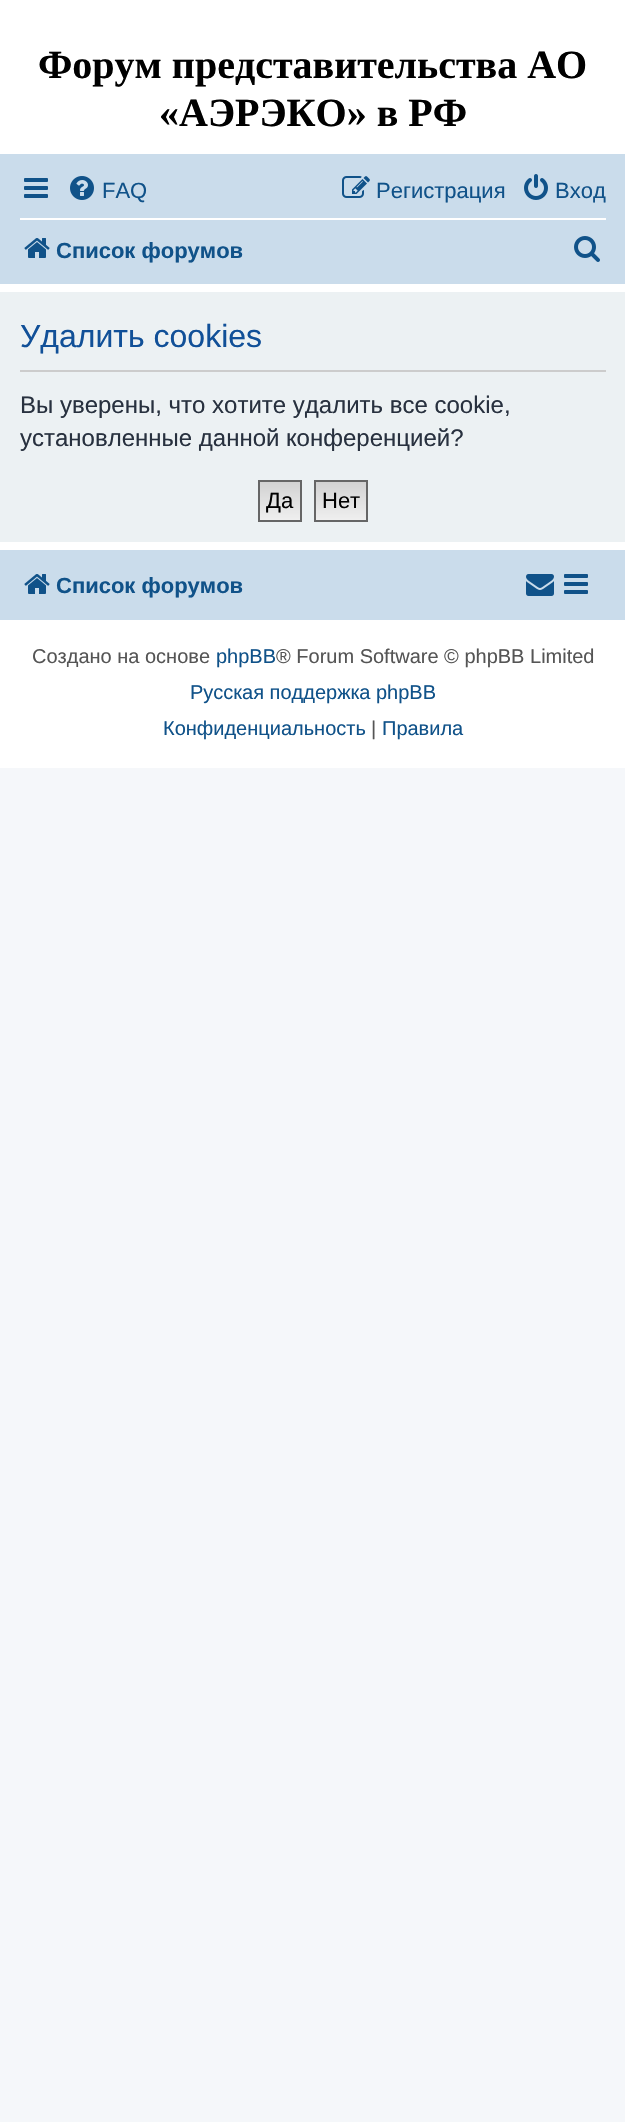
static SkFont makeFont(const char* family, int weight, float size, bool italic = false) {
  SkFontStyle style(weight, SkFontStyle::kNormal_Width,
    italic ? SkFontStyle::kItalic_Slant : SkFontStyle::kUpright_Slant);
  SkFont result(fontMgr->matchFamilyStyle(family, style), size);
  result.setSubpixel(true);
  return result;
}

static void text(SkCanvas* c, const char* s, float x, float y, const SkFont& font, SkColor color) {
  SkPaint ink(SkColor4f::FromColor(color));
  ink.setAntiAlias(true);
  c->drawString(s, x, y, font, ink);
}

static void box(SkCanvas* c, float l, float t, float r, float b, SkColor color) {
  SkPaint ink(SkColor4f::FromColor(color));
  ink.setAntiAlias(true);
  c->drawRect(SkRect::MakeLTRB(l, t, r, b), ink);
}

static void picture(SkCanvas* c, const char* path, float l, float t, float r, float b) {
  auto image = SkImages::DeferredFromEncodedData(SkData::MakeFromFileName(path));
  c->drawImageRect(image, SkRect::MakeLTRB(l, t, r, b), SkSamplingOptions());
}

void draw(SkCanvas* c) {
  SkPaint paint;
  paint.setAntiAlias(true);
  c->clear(0xfff5f7fa);
  box(c, 0, 0, 625, 768, 0xffffffff);
  SkFont face1 = makeFont("Liberation Serif", 700, 40);
  text(c, "Форум представительства АО", 38, 78, face1, 0xff000000);
  text(c, "«АЭРЭКО» в РФ", 159, 126, face1, 0xff000000);
  box(c, 0, 154, 625, 284, 0xffcadceb);
  picture(c, "img_01.png", 24, 178, 48, 198);
  picture(c, "img_02.png", 70, 176, 94, 200);
  SkFont face2 = makeFont("Liberation Sans", 400, 22);
  text(c, "FAQ", 102, 198, face2, 0xff105289);
  picture(c, "img_03.png", 342, 176, 370, 198);
  text(c, "Регистрация", 376, 198, face2, 0xff105289);
  picture(c, "img_04.png", 524, 174, 548, 200);
  text(c, "Вход", 555, 198, face2, 0xff105289);
  box(c, 20, 218, 606, 220, 0xffffffff);
  picture(c, "img_05.png", 24, 238, 50, 258);
  SkFont face3 = makeFont("Liberation Sans", 700, 22);
  text(c, "Список форумов", 56, 258, face3, 0xff105289);
  picture(c, "img_06.png", 574, 236, 600, 262);
  box(c, 0, 292, 625, 542, 0xffecf1f3);
  box(c, 20, 370, 606, 372, 0xffcccccc);
  SkFont face4 = makeFont("Liberation Sans", 400, 32);
  text(c, "Удалить cookies", 20, 347, face4, 0xff115098);
  SkFont face5 = makeFont("Liberation Sans", 400, 24);
  text(c, "Вы уверены, что хотите удалить все cookie,", 20, 413, face5, 0xff28313f);
  text(c, "установленные данной конференцией?", 20, 446, face5, 0xff28313f);
  {
    const SkColor colors[] = {0xffd2d2d2, 0xffefefef};
    const float stops[] = {0, 1};
    const SkPoint ends[] = {{280, 482}, {280, 520}};
    paint.setShader(SkGradientShader::MakeLinear(ends, colors, stops, 2, SkTileMode::kClamp));
    paint.setAlpha(255);
  }
  c->drawRect(SkRect::MakeLTRB(260, 482, 300, 520), paint);
  paint.setStyle(SkPaint::kStroke_Style);
  paint.setStrokeWidth(2);
  paint.setShader(nullptr);
  paint.setColor(0xff666666);
  c->drawRect(SkRect::MakeLTRB(259, 481, 301, 521), paint);
  text(c, "Да", 266, 508, face2, 0xff000000);
  paint.setStyle(SkPaint::kFill_Style);
  {
    const SkColor colors[] = {0xffd2d2d2, 0xffefefef};
    const float stops[] = {0, 1};
    const SkPoint ends[] = {{341, 482}, {341, 520}};
    paint.setShader(SkGradientShader::MakeLinear(ends, colors, stops, 2, SkTileMode::kClamp));
    paint.setAlpha(255);
  }
  c->drawRect(SkRect::MakeLTRB(316, 482, 366, 520), paint);
  paint.setStyle(SkPaint::kStroke_Style);
  paint.setShader(nullptr);
  paint.setColor(0xff666666);
  c->drawRect(SkRect::MakeLTRB(315, 481, 367, 521), paint);
  text(c, "Нет", 322, 508, face2, 0xff000000);
  box(c, 0, 550, 625, 620, 0xffcadceb);
  picture(c, "img_05.png", 24, 574, 50, 594);
  text(c, "Список форумов", 56, 593, face3, 0xff105289);
  picture(c, "img_07.png", 526, 574, 554, 596);
  picture(c, "img_01.png", 564, 574, 588, 594);
  SkFont face6 = makeFont("Liberation Sans", 400, 20);
  text(c, "Создано на основе", 32, 663, face6, 0xff555555);
  text(c, "phpBB", 216, 663, face6, 0xff105289);
  text(c, "® Forum Software © phpBB Limited", 276, 663, face6, 0xff555555);
  text(c, "Русская поддержка phpBB", 190, 699, face6, 0xff105289);
  text(c, "Конфиденциальность", 163, 735, face6, 0xff105289);
  text(c, "|", 371, 735, face6, 0xff555555);
  text(c, "Правила", 382, 735, face6, 0xff105289);
}
